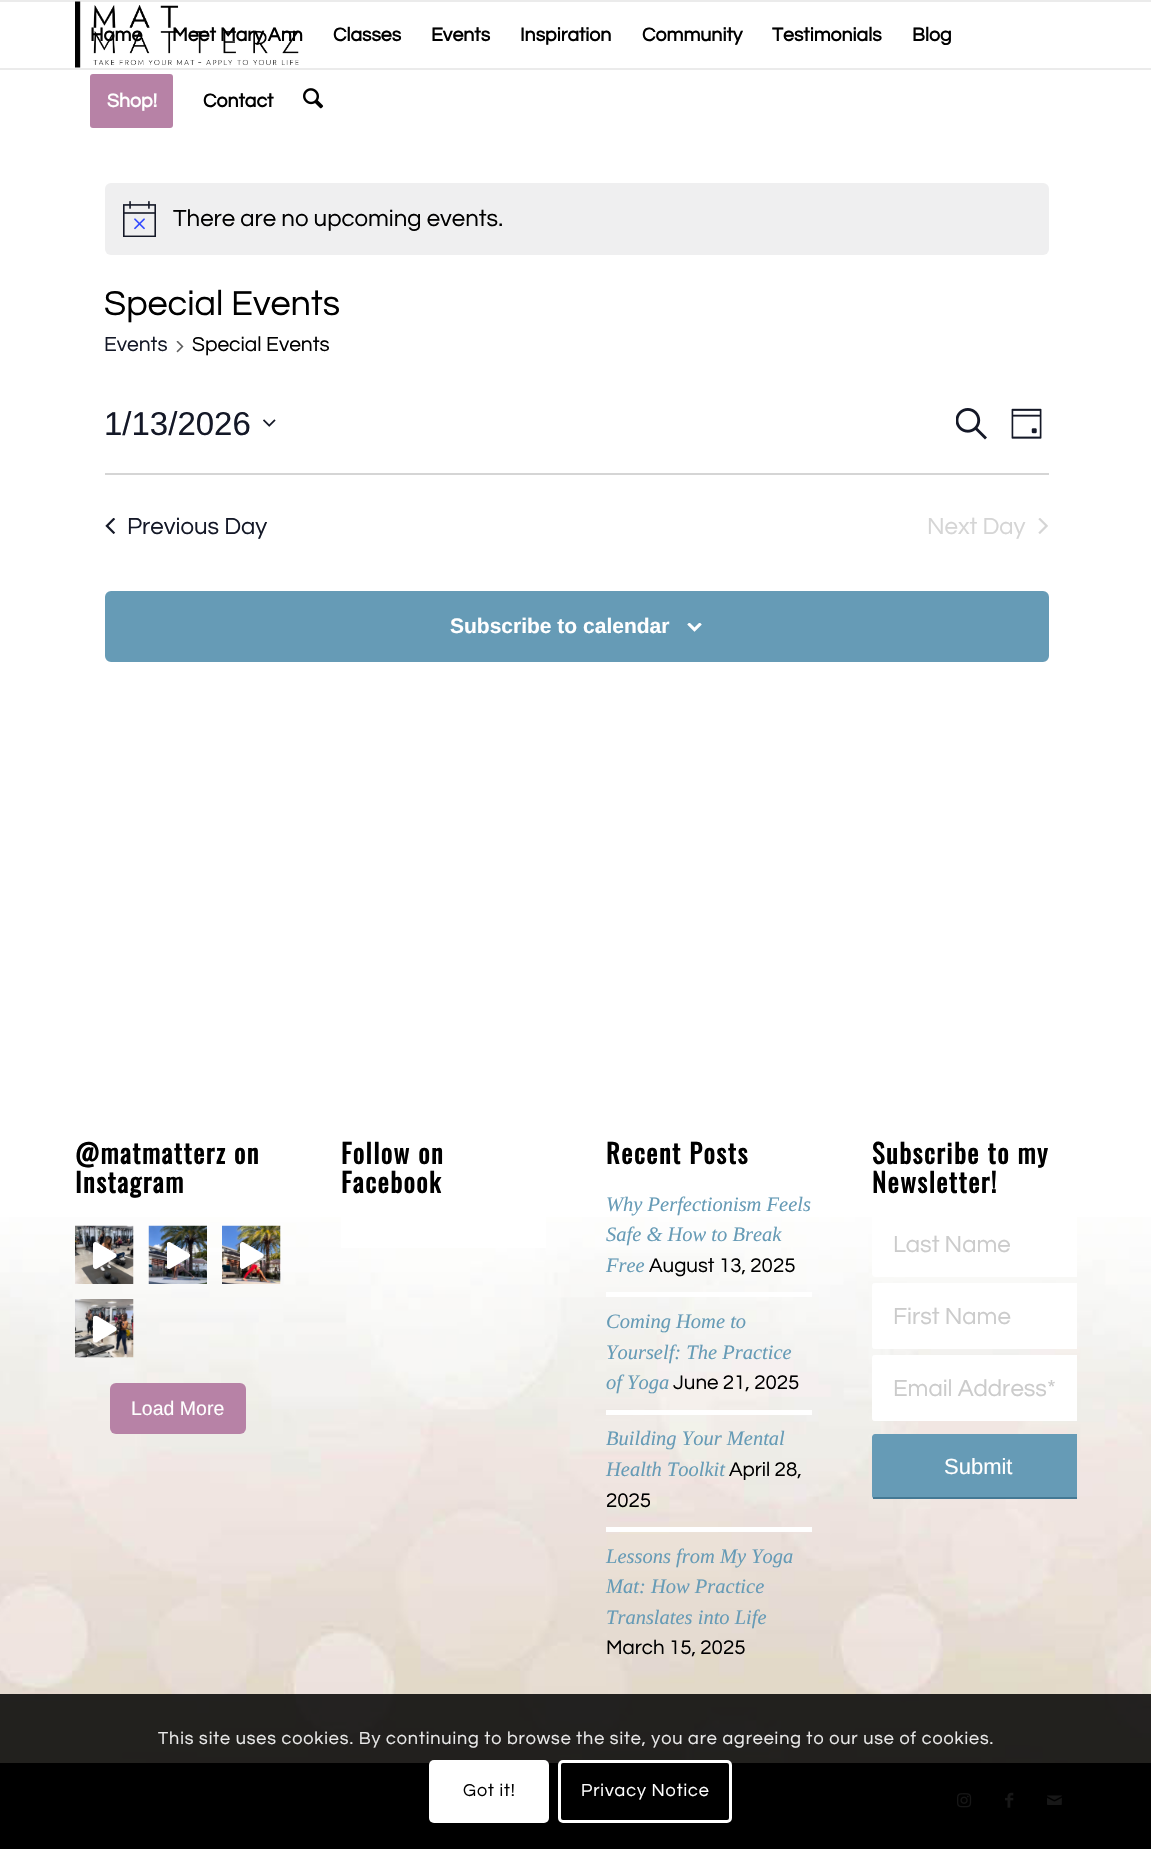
static SkFont makeFont(const char* family, int weight, float size, bool italic = false) {
  SkFontStyle style(weight, SkFontStyle::kNormal_Width,
    italic ? SkFontStyle::kItalic_Slant : SkFontStyle::kUpright_Slant);
  SkFont result(fontMgr->matchFamilyStyle(family, style), size);
  result.setSubpixel(true);
  return result;
}

static void text(SkCanvas* c, const char* s, float x, float y, const SkFont& font, SkColor color) {
  SkPaint ink(SkColor4f::FromColor(color));
  ink.setAntiAlias(true);
  c->drawString(s, x, y, font, ink);
}

static void spacedText(SkCanvas* c, const char* s, float x, float y, const SkFont& font, const SkPaint& ink, float letter, float word) {
  std::vector<SkGlyphID> glyphs(font.countText(s, strlen(s), SkTextEncoding::kUTF8));
  std::vector<float> xs(glyphs.size());
  font.textToGlyphs(s, strlen(s), SkTextEncoding::kUTF8, glyphs);
  font.getXPos(glyphs, xs, x);
  float extra = 0;
  for (size_t i = 0; i < glyphs.size(); i++) {
    xs[i] += extra;
    extra += letter + word * (glyphs[i] == font.unicharToGlyph(' '));
  }
  c->drawTextBlob(SkTextBlob::MakeFromPosHGlyphs(glyphs, xs, y, font), 0, 0, ink);
}

static void box(SkCanvas* c, float l, float t, float r, float b, SkColor color) {
  SkPaint ink(SkColor4f::FromColor(color));
  ink.setAntiAlias(true);
  c->drawRect(SkRect::MakeLTRB(l, t, r, b), ink);
}

static void roundBox(SkCanvas* c, float l, float t, float r, float b, float radius, SkColor color) {
  SkPaint ink(SkColor4f::FromColor(color));
  ink.setAntiAlias(true);
  c->drawRoundRect(SkRect::MakeLTRB(l, t, r, b), radius, radius, ink);
}

static void picture(SkCanvas* c, const char* path, float l, float t, float r, float b) {
  auto image = SkImages::DeferredFromEncodedData(SkData::MakeFromFileName(path));
  c->drawImageRect(image, SkRect::MakeLTRB(l, t, r, b), SkSamplingOptions());
}

void draw(SkCanvas* c) {
  SkPaint paint;
  paint.setAntiAlias(true);
  c->clear(0xffffffff);
  box(c, 0, 0, 1151, 2, 0xffebebeb);
  box(c, 0, 68, 1151, 70, 0xffebebeb);
  picture(c, "img_01.png", 75, 1, 299, 68);
  SkFont face1 = makeFont("Questrial", 700, 19.5f);
  text(c, "Home", 90, 41, face1, 0xff000000);
  text(c, "Meet Mary Ann", 172, 41, face1, 0xff000000);
  text(c, "Classes", 333, 41, face1, 0xff000000);
  text(c, "Events", 431, 41, face1, 0xff000000);
  text(c, "Inspiration", 520, 41, face1, 0xff000000);
  text(c, "Community", 642, 41, face1, 0xff000000);
  text(c, "Testimonials", 772, 41, face1, 0xff000000);
  text(c, "Blog", 912, 41, face1, 0xff000000);
  paint.setColor(0xffb782a6);
  c->drawRoundRect(SkRect::MakeLTRB(91.5f, 75.5f, 171.5f, 126.5f), 1.5f, 1.5f, paint);
  paint.setStyle(SkPaint::kStroke_Style);
  paint.setStrokeWidth(3);
  c->drawRoundRect(SkRect::MakeLTRB(91.5f, 75.5f, 171.5f, 126.5f), 1.5f, 1.5f, paint);
  text(c, "Shop!", 107, 107, face1, 0xffffffff);
  text(c, "Contact", 203, 107, face1, 0xff000000);
  picture(c, "img_02.png", 303, 88, 324, 109);
  roundBox(c, 105, 183, 1049, 255, 6, 0xffefeff0);
  picture(c, "img_03.png", 123, 201, 156, 237);
  SkFont face2 = makeFont("Questrial", 400, 24);
  text(c, "There are no upcoming events.", 173, 226, face2, 0xff000000);
  SkFont face3 = makeFont("Questrial", 400, 36);
  text(c, "Special Events", 104, 315, face3, 0xff000000);
  SkFont face4 = makeFont("Questrial", 400, 21);
  text(c, "Events", 104, 351, face4, 0xff141827);
  picture(c, "img_04.png", 176, 341, 184, 353);
  text(c, "Special Events", 192, 351, face4, 0xff000000);
  SkFont face5 = makeFont("Liberation Sans", 400, 33);
  text(c, "1/13/2026", 104, 435, face5, 0xff141827);
  picture(c, "img_05.png", 263, 419, 276, 427);
  picture(c, "img_06.png", 956, 408, 987, 440);
  picture(c, "img_07.png", 1011, 408, 1042, 439);
  box(c, 105, 473, 1049, 475, 0xffd5d5d5);
  picture(c, "img_08.png", 105, 518, 116, 534);
  text(c, "Previous Day", 127, 534, face2, 0xff141827);
  text(c, "Next Day", 927, 534, face2, 0xffd5d5d5);
  picture(c, "img_09.png", 1038, 518, 1048, 534);
  paint.setStyle(SkPaint::kFill_Style);
  paint.setColor(0xff669bb6);
  c->drawRoundRect(SkRect::MakeLTRB(106, 592, 1048, 661), 5, 5, paint);
  paint.setStyle(SkPaint::kStroke_Style);
  paint.setStrokeWidth(2);
  c->drawRoundRect(SkRect::MakeLTRB(106, 592, 1048, 661), 5, 5, paint);
  SkFont face6 = makeFont("Liberation Sans", 700, 21);
  text(c, "Subscribe to calendar", 450, 633, face6, 0xffffffff);
  picture(c, "img_10.png", 687, 623, 702, 632);
  picture(c, "img_11.png", 0, 1217, 1151, 1763);
  SkFont face7 = makeFont("Oswald", 700, 26.5f);
  paint.setStyle(SkPaint::kFill_Style);
  paint.setColor(0xff000000);
  spacedText(c, "@matmatterz on", 75, 1164, face7, paint, 1.5f, 0);
  spacedText(c, "Instagram", 75, 1193, face7, paint, 1.5f, 0);
  picture(c, "img_12.png", 75, 1225, 134, 1284);
  picture(c, "img_13.png", 93, 1242, 117, 1269);
  picture(c, "img_14.png", 148, 1225, 207, 1284);
  picture(c, "img_15.png", 167, 1242, 191, 1269);
  picture(c, "img_16.png", 222, 1225, 281, 1284);
  picture(c, "img_17.png", 240, 1242, 264, 1269);
  picture(c, "img_18.png", 75, 1299, 134, 1358);
  picture(c, "img_19.png", 93, 1316, 117, 1343);
  roundBox(c, 110, 1383, 246, 1434, 6, 0xffb782a6);
  SkFont face8 = makeFont("Liberation Sans", 400, 19.5f);
  text(c, "Load More", 131, 1415, face8, 0xffffffff);
  spacedText(c, "Follow on", 341, 1164, face7, paint, 1.5f, 0);
  spacedText(c, "Facebook", 341, 1193, face7, paint, 1.5f, 0);
  box(c, 341, 1217, 546, 1248, 0xffffffff);
  spacedText(c, "Recent Posts", 606, 1164, face7, paint, 1.5f, 0);
  SkFont face9 = makeFont("Liberation Serif", 400, 20.5f, true);
  text(c, "Why Perfectionism Feels", 606, 1211, face9, 0xff669bb6);
  text(c, "Safe & How to Break", 606, 1241, face9, 0xff669bb6);
  text(c, "Free", 606, 1272, face9, 0xff669bb6);
  SkFont face10 = makeFont("Questrial", 400, 20.5f);
  text(c, "August 13, 2025", 649, 1272, face10, 0xff000000);
  box(c, 606, 1292, 812, 1297, 0xffffffff);
  text(c, "Coming Home to", 606, 1328, face9, 0xff669bb6);
  text(c, "Yourself: The Practice", 606, 1359, face9, 0xff669bb6);
  text(c, "of Yoga", 606, 1389, face9, 0xff669bb6);
  text(c, "June 21, 2025", 673, 1389, face10, 0xff000000);
  box(c, 606, 1410, 812, 1415, 0xffffffff);
  text(c, "Building Your Mental", 606, 1445, face9, 0xff669bb6);
  text(c, "Health Toolkit", 606, 1476, face9, 0xff669bb6);
  text(c, "April 28,", 729, 1476, face10, 0xff000000);
  text(c, "2025", 606, 1507, face10, 0xff000000);
  box(c, 606, 1527, 812, 1532, 0xffffffff);
  text(c, "Lessons from My Yoga", 606, 1563, face9, 0xff669bb6);
  text(c, "Mat: How Practice", 606, 1593, face9, 0xff669bb6);
  text(c, "Translates into Life", 606, 1624, face9, 0xff669bb6);
  text(c, "March 15, 2025", 606, 1654, face10, 0xff000000);
  spacedText(c, "Subscribe to my", 872, 1164, face7, paint, 1.5f, 0);
  spacedText(c, "Newsletter!", 872, 1193, face7, paint, 1.5f, 0);
  paint.setColor(0xffffffff);
  c->drawPath(SkPathBuilder().moveTo(875, 1211).lineTo(1077, 1211).lineTo(1077, 1277).lineTo(875, 1277).cubicTo(873.5f, 1277, 872, 1275.5f, 872, 1274).lineTo(872, 1214).cubicTo(872, 1212.5f, 873.5f, 1211, 875, 1211).close().detach(), paint);
  text(c, "Last Name", 893, 1252, face2, 0xffcbcbcb);
  c->drawPath(SkPathBuilder().moveTo(875, 1283).lineTo(1077, 1283).lineTo(1077, 1349).lineTo(875, 1349).cubicTo(873.5f, 1349, 872, 1347.5f, 872, 1346).lineTo(872, 1286).cubicTo(872, 1284.5f, 873.5f, 1283, 875, 1283).close().detach(), paint);
  c->save();
  c->clipRect(SkRect::MakeLTRB(872, 1116, 1077, 1502));
  paint.setStyle(SkPaint::kStroke_Style);
  c->drawRoundRect(SkRect::MakeLTRB(873, 1284, 1084, 1348), 2, 2, paint);
  c->restore();
  text(c, "First Name", 893, 1324, face2, 0xffcbcbcb);
  paint.setStyle(SkPaint::kFill_Style);
  c->drawPath(SkPathBuilder().moveTo(875, 1355).lineTo(1077, 1355).lineTo(1077, 1421).lineTo(875, 1421).cubicTo(873.5f, 1421, 872, 1419.5f, 872, 1418).lineTo(872, 1358).cubicTo(872, 1356.5f, 873.5f, 1355, 875, 1355).close().detach(), paint);
  c->save();
  c->clipRect(SkRect::MakeLTRB(872, 1116, 1077, 1502));
  paint.setStyle(SkPaint::kStroke_Style);
  c->drawRoundRect(SkRect::MakeLTRB(873, 1356, 1084, 1420), 2, 2, paint);
  c->restore();
  text(c, "Email Address*", 893, 1396, face2, 0xffcbcbcb);
  paint.setStyle(SkPaint::kFill_Style);
  paint.setColor(0xff669bb6);
  c->drawPath(SkPathBuilder().moveTo(875, 1434).lineTo(1077, 1434).lineTo(1077, 1499).lineTo(875, 1499).cubicTo(873.5f, 1499, 872, 1497.5f, 872, 1496).lineTo(872, 1437).cubicTo(872, 1435.5f, 873.5f, 1434, 875, 1434).close().detach(), paint);
  box(c, 873, 1497, 1077, 1499, 0xff447994);
  SkFont face11 = makeFont("Liberation Sans", 400, 22);
  text(c, "Submit", 944, 1474, face11, 0xffffffff);
  box(c, 0, 1763, 1151, 1849, 0xff000000);
  picture(c, "img_20.png", 957, 1793, 972, 1808);
  picture(c, "img_21.png", 1005, 1792, 1014, 1808);
  picture(c, "img_22.png", 1047, 1795, 1062, 1805);
  box(c, 0, 1694, 1151, 1808, 0xd9000000);
  SkFont face12 = makeFont("Questrial", 400, 18);
  paint.setColor(0xffe9e9e9);
  spacedText(c, "This site uses cookies. By continuing to browse the site, you are agreeing to our use of cookies.", 158, 1744, face12, paint, 0.9f, 0);
  roundBox(c, 429, 1760, 549, 1823, 5, 0xffffffff);
  paint.setColor(0xff000000);
  spacedText(c, "Got it!", 463, 1796, face12, paint, 0.9f, 0);
  paint.setStyle(SkPaint::kStroke_Style);
  paint.setStrokeWidth(3);
  paint.setColor(0xffffffff);
  c->drawRoundRect(SkRect::MakeLTRB(559.5f, 1761.5f, 730.5f, 1821.5f), 3.5f, 3.5f, paint);
  paint.setStyle(SkPaint::kFill_Style);
  spacedText(c, "Privacy Notice", 581, 1796, face12, paint, 0.9f, 0);
}
